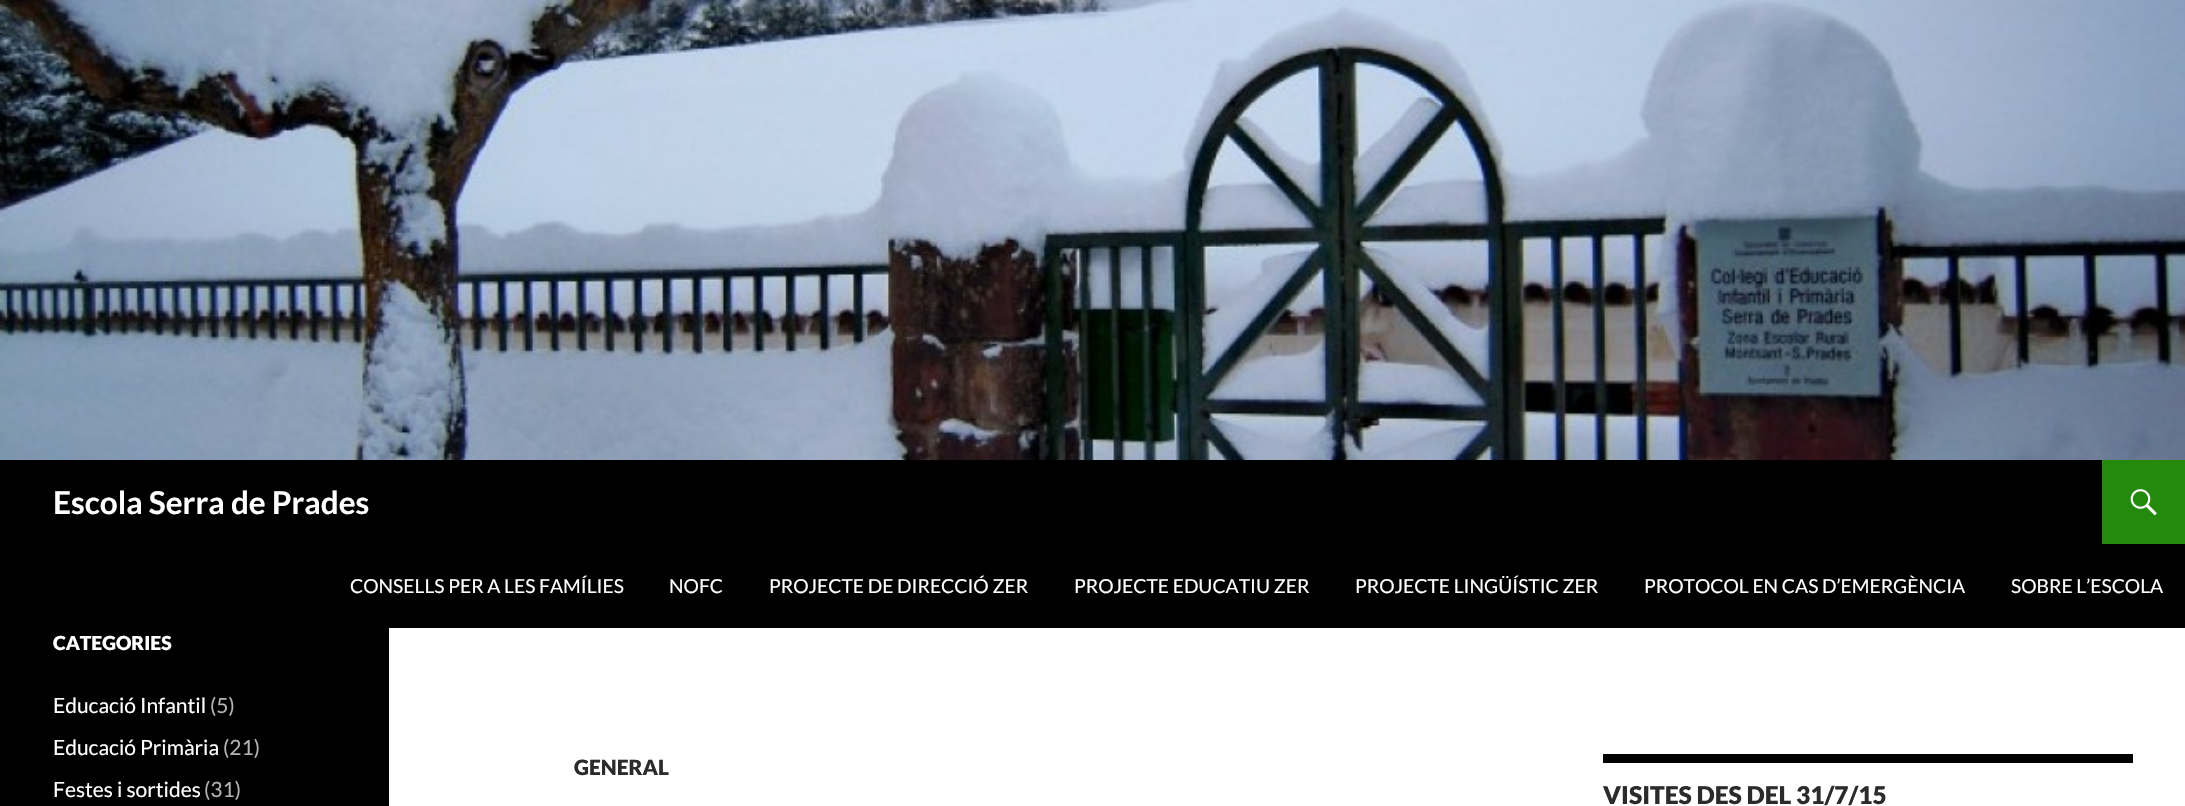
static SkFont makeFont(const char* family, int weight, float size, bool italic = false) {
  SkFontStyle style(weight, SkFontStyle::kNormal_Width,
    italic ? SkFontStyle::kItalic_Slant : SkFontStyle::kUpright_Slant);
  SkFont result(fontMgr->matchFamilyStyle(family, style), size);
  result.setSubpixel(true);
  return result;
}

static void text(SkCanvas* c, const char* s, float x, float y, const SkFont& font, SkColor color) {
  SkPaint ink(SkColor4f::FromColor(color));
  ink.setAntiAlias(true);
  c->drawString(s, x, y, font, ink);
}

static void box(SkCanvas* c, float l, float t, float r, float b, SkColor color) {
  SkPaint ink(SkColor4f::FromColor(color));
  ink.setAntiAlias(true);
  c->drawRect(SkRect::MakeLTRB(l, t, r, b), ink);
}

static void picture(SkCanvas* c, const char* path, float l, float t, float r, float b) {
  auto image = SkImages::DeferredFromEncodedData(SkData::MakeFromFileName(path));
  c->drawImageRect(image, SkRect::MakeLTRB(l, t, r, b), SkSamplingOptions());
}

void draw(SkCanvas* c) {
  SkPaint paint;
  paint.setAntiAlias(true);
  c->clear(0xffffffff);
  picture(c, "img_01.png", 0, 0, 2185, 460);
  box(c, 0, 460, 2185, 628, 0xff000000);
  SkFont face1 = makeFont("Lato", 700, 31.5f);
  text(c, "Escola Serra de Prades", 53, 514, face1, 0xffffffff);
  box(c, 2102, 460, 2185, 544, 0xff24890d);
  picture(c, "img_02.png", 2130, 489, 2157, 516);
  SkFont face2 = makeFont("Lato", 400, 19.25f);
  text(c, "CONSELLS PER A LES FAMÍLIES", 350, 593, face2, 0xffffffff);
  text(c, "NOFC", 669, 593, face2, 0xffffffff);
  text(c, "PROJECTE DE DIRECCIÓ ZER", 769, 593, face2, 0xffffffff);
  text(c, "PROJECTE EDUCATIU ZER", 1074, 593, face2, 0xffffffff);
  text(c, "PROJECTE LINGÜÍSTIC ZER", 1355, 593, face2, 0xffffffff);
  text(c, "PROTOCOL EN CAS D’EMERGÈNCIA", 1644, 593, face2, 0xffffffff);
  text(c, "SOBRE L’ESCOLA", 2011, 593, face2, 0xffffffff);
  box(c, 0, 628, 389, 806, 0xff000000);
  SkFont face3 = makeFont("Lato", 900, 19.25f);
  text(c, "CATEGORIES", 53, 650, face3, 0xffffffff);
  SkFont face4 = makeFont("Lato", 400, 21);
  text(c, "Educació Infantil", 53, 713, face4, 0xffffffff);
  text(c, "(5)", 210, 713, face4, 0xffb3b3b3);
  text(c, "Educació Primària", 53, 755, face4, 0xffffffff);
  text(c, "(21)", 223, 755, face4, 0xffb3b3b3);
  text(c, "Festes i sortides", 53, 797, face4, 0xffffffff);
  text(c, "(31)", 204, 797, face4, 0xffb3b3b3);
  SkFont face5 = makeFont("Lato", 900, 21);
  text(c, "GENERAL", 574, 775, face5, 0xff2b2b2b);
  box(c, 1603, 754, 2133, 763, 0xff000000);
  SkFont face6 = makeFont("Lato", 900, 24.5f);
  text(c, "VISITES DES DEL 31/7/15", 1603, 804, face6, 0xff2b2b2b);
}
